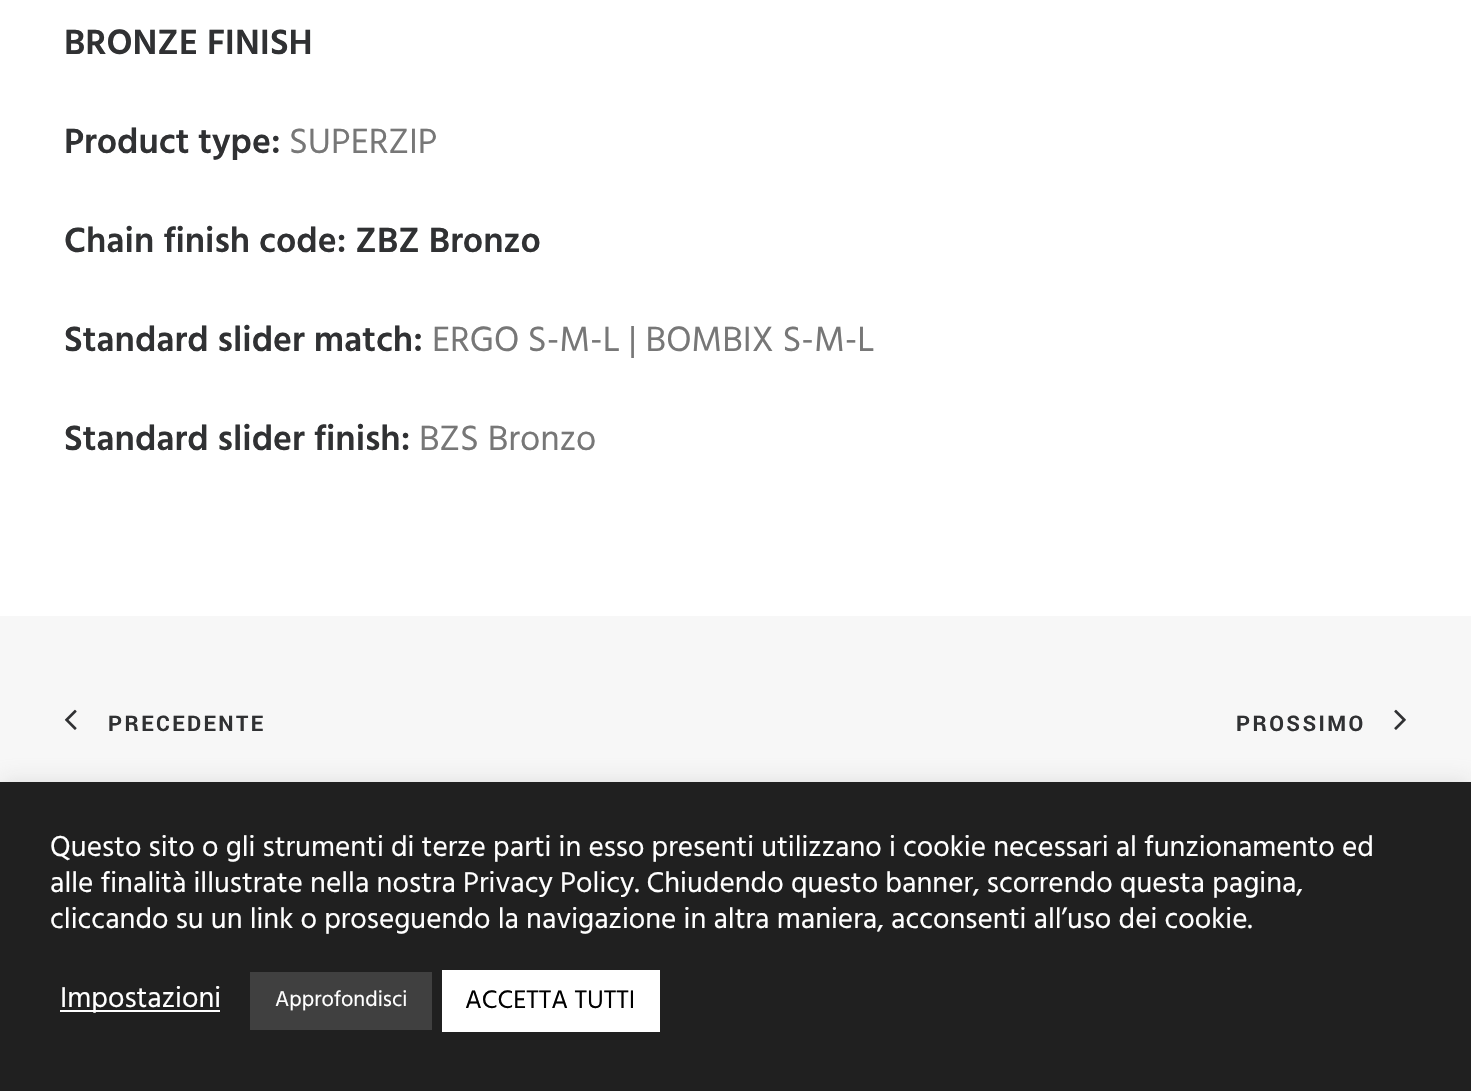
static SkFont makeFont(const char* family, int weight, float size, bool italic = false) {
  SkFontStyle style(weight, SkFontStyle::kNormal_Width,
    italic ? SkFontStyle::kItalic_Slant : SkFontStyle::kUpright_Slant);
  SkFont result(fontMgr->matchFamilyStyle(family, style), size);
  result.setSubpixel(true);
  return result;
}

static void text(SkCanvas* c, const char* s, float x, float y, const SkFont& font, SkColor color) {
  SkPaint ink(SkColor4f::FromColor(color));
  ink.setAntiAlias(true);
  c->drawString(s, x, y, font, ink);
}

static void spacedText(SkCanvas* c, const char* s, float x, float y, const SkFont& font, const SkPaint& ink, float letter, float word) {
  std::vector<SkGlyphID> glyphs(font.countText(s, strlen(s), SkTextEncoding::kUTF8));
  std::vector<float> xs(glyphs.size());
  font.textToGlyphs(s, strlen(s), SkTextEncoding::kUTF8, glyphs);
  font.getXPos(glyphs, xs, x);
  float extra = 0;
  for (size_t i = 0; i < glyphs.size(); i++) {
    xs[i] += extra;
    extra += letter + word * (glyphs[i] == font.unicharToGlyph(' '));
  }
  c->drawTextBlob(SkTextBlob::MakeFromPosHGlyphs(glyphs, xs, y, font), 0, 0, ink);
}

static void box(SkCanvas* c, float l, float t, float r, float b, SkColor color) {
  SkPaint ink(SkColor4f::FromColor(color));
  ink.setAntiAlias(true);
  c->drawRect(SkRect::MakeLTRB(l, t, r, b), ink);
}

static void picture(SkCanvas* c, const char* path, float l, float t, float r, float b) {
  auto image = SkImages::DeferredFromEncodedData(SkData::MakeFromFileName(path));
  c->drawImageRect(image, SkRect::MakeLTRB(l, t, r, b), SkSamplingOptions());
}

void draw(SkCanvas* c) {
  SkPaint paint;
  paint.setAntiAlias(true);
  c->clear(0xffffffff);
  SkFont face1 = makeFont("Hind", 600, 36);
  text(c, "BRONZE FINISH", 64, 54, face1, 0xff303133);
  text(c, "Product type:", 64, 153, face1, 0xff303133);
  SkFont face2 = makeFont("Hind", 400, 36);
  text(c, "SUPERZIP", 289, 153, face2, 0xff777777);
  text(c, "Chain finish code: ZBZ Bronzo", 64, 252, face1, 0xff303133);
  text(c, "Standard slider match:", 64, 351, face1, 0xff303133);
  text(c, "ERGO S-M-L | BOMBIX S-M-L", 432, 351, face2, 0xff777777);
  text(c, "Standard slider finish:", 64, 450, face1, 0xff303133);
  text(c, "BZS Bronzo", 419, 450, face2, 0xff777777);
  box(c, 0, 616, 1471, 782, 0xfff7f7f7);
  picture(c, "img_01.png", 64, 709, 77, 730);
  SkFont face3 = makeFont("Yantramanav", 700, 24);
  paint.setColor(0xff303133);
  spacedText(c, "PRECEDENTE", 108, 731, face3, paint, 2.4f, 0);
  spacedText(c, "PROSSIMO", 1236, 731, face3, paint, 2.4f, 0);
  picture(c, "img_02.png", 1394, 709, 1406, 730);
  paint.setColor(0x4dacabab);
  paint.setMaskFilter(SkMaskFilter::MakeBlur(kNormal_SkBlurStyle, 10));
  c->drawRect(SkRect::MakeLTRB(0, 780, 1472, 1090), paint);
  paint.setMaskFilter(nullptr);
  box(c, 0, 782, 1471, 1091, 0xff202020);
  SkFont face4 = makeFont("Hind", 400, 29.35f);
  text(c, "Questo sito o gli strumenti di terze parti in esso presenti utilizzano i cookie necessari al funzionamento ed", 50, 856, face4, 0xffffffff);
  text(c, "alle finalità illustrate nella nostra Privacy Policy. Chiudendo questo banner, scorrendo questa pagina,", 50, 892, face4, 0xffffffff);
  text(c, "cliccando su un link o proseguendo la navigazione in altra maniera, acconsenti all’uso dei cookie.", 50, 928, face4, 0xffffffff);
  box(c, 60, 1010, 220, 1012, 0xffffffff);
  text(c, "Impostazioni", 60, 1007, face4, 0xffffffff);
  box(c, 250, 972, 432, 1030, 0xff404040);
  SkFont face5 = makeFont("Hind", 400, 22);
  text(c, "Approfondisci", 275, 1006, face5, 0xffffffff);
  box(c, 442, 970, 660, 1032, 0xffffffff);
  SkFont face6 = makeFont("Hind", 400, 26);
  text(c, "ACCETTA TUTTI", 465, 1008, face6, 0xff000000);
}
